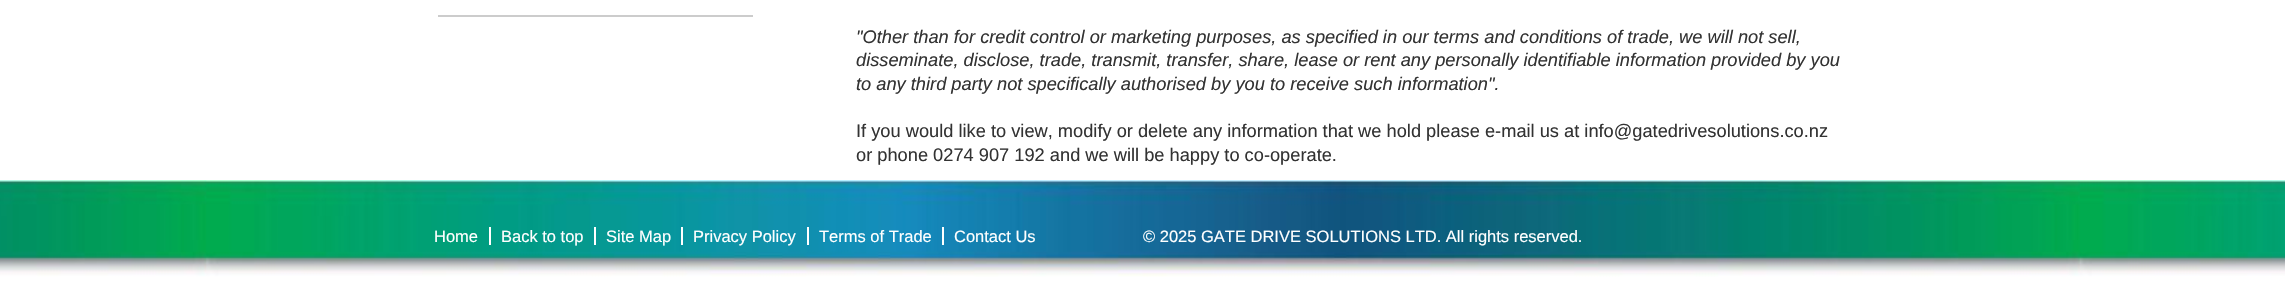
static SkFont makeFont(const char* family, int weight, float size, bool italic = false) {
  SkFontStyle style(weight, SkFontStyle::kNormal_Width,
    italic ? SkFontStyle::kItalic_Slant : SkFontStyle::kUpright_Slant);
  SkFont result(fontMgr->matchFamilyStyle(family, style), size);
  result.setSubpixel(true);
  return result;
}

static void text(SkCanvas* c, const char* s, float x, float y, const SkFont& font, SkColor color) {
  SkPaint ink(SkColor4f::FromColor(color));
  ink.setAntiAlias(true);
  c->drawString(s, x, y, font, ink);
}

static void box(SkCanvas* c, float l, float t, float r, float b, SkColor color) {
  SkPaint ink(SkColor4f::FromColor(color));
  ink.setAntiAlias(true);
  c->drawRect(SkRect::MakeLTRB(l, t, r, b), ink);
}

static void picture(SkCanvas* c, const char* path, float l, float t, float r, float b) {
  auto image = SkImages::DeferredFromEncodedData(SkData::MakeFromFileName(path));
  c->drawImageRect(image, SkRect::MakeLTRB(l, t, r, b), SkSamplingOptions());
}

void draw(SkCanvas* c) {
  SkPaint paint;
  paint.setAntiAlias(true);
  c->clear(0xffffffff);
  box(c, 438, 15, 753, 17, 0xffcccccc);
  SkFont face1 = makeFont("Liberation Sans", 400, 18.25f, true);
  text(c, "\"Other than for credit control or marketing purposes, as specified in our terms and conditions of trade, we will not sell,", 856, 43, face1, 0xff333333);
  text(c, "disseminate, disclose, trade, transmit, transfer, share, lease or rent any personally identifiable information provided by you", 856, 66, face1, 0xff333333);
  text(c, "to any third party not specifically authorised by you to receive such information\".", 856, 90, face1, 0xff333333);
  SkFont face2 = makeFont("Liberation Sans", 400, 18.25f);
  text(c, "If you would like to view, modify or delete any information that we hold please e-mail us at info@gatedrivesolutions.co.nz", 856, 137, face2, 0xff333333);
  text(c, "or phone 0274 907 192 and we will be happy to co-operate.", 856, 161, face2, 0xff333333);
  picture(c, "img_01.png", 0, 180, 2285, 277);
  SkFont face3 = makeFont("Liberation Sans", 400, 16.5f);
  text(c, "Home", 434, 242, face3, 0xffffffff);
  text(c, "Back to top", 501, 242, face3, 0xffffffff);
  box(c, 489, 227, 491, 245, 0xffffffff);
  text(c, "Site Map", 606, 242, face3, 0xffffffff);
  box(c, 594, 227, 596, 245, 0xffffffff);
  text(c, "Privacy Policy", 693, 242, face3, 0xffffffff);
  box(c, 681, 227, 683, 245, 0xffffffff);
  text(c, "Terms of Trade", 819, 242, face3, 0xffffffff);
  box(c, 807, 227, 809, 245, 0xffffffff);
  text(c, "Contact Us", 954, 242, face3, 0xffffffff);
  box(c, 942, 227, 944, 245, 0xffffffff);
  text(c, "© 2025 GATE DRIVE SOLUTIONS LTD. All rights reserved.", 1143, 242, face3, 0xffffffff);
}
